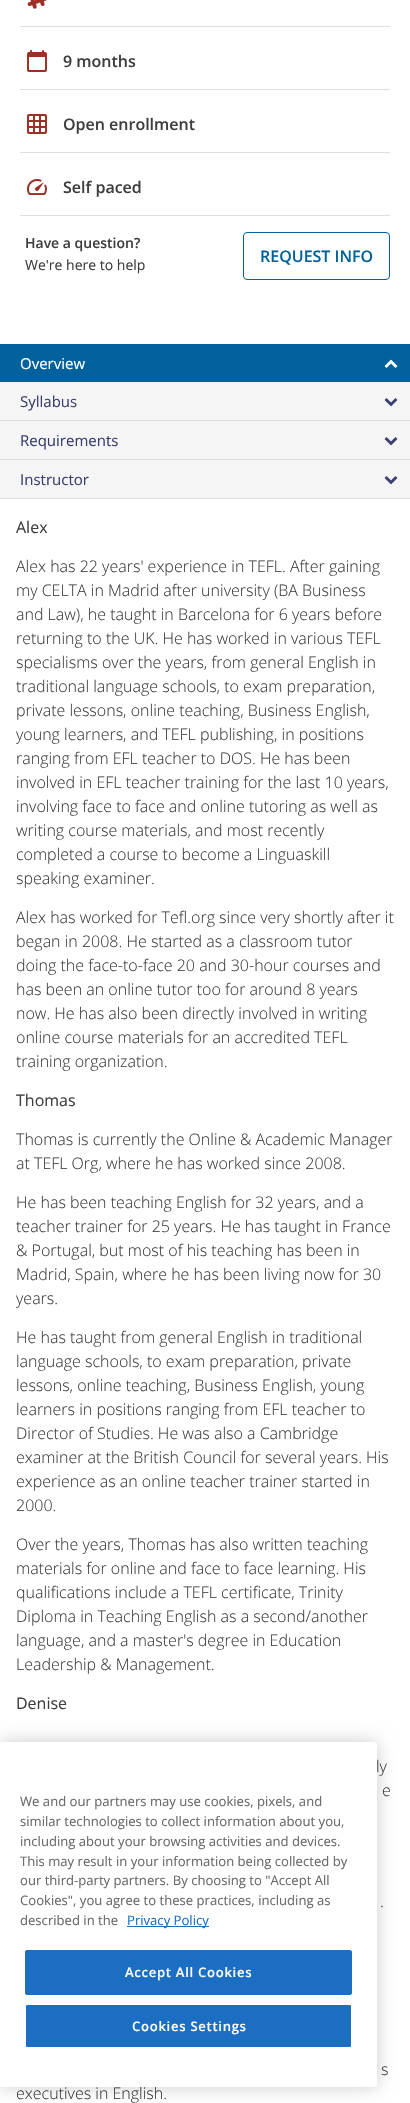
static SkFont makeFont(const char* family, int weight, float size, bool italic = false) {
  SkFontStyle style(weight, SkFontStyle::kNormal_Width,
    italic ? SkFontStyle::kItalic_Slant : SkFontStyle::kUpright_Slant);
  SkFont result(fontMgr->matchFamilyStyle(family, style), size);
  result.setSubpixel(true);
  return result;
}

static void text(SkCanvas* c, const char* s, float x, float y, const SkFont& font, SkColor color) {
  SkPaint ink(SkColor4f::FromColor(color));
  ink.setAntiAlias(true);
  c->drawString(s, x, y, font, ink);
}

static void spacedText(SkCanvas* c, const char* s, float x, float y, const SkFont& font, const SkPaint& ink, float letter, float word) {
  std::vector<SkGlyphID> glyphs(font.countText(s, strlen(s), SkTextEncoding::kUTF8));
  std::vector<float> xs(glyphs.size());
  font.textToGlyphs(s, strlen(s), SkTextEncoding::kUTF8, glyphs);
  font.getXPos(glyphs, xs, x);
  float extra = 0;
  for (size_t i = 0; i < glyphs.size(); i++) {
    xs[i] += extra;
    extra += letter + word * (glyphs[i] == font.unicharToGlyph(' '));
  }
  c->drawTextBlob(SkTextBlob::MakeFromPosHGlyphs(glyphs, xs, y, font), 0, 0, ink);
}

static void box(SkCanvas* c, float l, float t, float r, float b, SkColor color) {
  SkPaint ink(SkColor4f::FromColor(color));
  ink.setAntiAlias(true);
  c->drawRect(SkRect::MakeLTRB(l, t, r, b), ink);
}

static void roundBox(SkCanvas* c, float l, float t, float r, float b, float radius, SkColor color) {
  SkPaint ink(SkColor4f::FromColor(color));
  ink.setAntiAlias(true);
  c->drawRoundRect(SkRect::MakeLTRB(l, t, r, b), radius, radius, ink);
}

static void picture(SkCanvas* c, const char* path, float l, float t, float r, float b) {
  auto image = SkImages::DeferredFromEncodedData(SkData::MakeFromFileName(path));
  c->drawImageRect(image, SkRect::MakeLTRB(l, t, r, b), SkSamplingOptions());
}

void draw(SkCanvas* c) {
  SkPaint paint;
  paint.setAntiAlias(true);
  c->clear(0xffffffff);
  box(c, 20, 26, 390, 27, 0xffdfdfdf);
  picture(c, "img_01.png", 27, 0, 47, 9);
  box(c, 20, 89, 390, 90, 0xffdfdfdf);
  picture(c, "img_02.png", 27, 50, 47, 72);
  SkFont face1 = makeFont("Open Sans", 600, 16);
  text(c, "9 months", 63, 67, face1, 0xff3f3f3f);
  box(c, 20, 152, 390, 153, 0xffdfdfdf);
  picture(c, "img_03.png", 27, 114, 47, 134);
  text(c, "Open enrollment", 63, 130, face1, 0xff3f3f3f);
  box(c, 20, 215, 390, 216, 0xffdfdfdf);
  picture(c, "img_04.png", 27, 179, 47, 195);
  text(c, "Self paced", 63, 193, face1, 0xff3f3f3f);
  SkFont face2 = makeFont("Open Sans", 600, 14);
  text(c, "Have a question?", 25, 248, face2, 0xff3f3f3f);
  SkFont face3 = makeFont("Open Sans", 400, 14);
  text(c, "We're here to help", 25, 270, face3, 0xff3f3f3f);
  paint.setStyle(SkPaint::kStroke_Style);
  paint.setStrokeWidth(1);
  paint.setColor(0xff006298);
  c->drawRoundRect(SkRect::MakeLTRB(243.5f, 232.5f, 389.5f, 279.5f), 3.5f, 3.5f, paint);
  text(c, "REQUEST INFO", 260, 262, face1, 0xff006298);
  box(c, 0, 344, 410, 382, 0xff00619c);
  SkFont face4 = makeFont("Open Sans", 400, 15);
  text(c, "Overview", 20, 369, face4, 0xffffffff);
  picture(c, "img_05.png", 384, 359, 398, 368);
  box(c, 0, 382, 410, 420, 0xfff5f5f5);
  box(c, 0, 420, 410, 421, 0xffdddddd);
  text(c, "Syllabus", 20, 407, face4, 0xff3a3f6f);
  picture(c, "img_06.png", 384, 398, 398, 407);
  box(c, 0, 421, 410, 459, 0xfff5f5f5);
  box(c, 0, 459, 410, 460, 0xffdddddd);
  text(c, "Requirements", 20, 446, face4, 0xff3a3f6f);
  picture(c, "img_06.png", 384, 437, 398, 446);
  box(c, 0, 460, 410, 498, 0xfff5f5f5);
  box(c, 0, 498, 410, 499, 0xffdddddd);
  text(c, "Instructor", 20, 485, face4, 0xff3a3f6f);
  picture(c, "img_06.png", 384, 476, 398, 485);
  SkFont face5 = makeFont("Open Sans", 400, 16);
  text(c, "Alex", 16, 533, face5, 0xff3f3f3f);
  SkFont face6 = makeFont("Open Sans", 300, 16);
  text(c, "Alex has 22 years' experience in TEFL. After gaining", 16, 572, face6, 0xff3f3f3f);
  text(c, "my CELTA in Madrid after university (BA Business", 16, 596, face6, 0xff3f3f3f);
  text(c, "and Law), he taught in Barcelona for 6 years before", 16, 620, face6, 0xff3f3f3f);
  text(c, "returning to the UK. He has worked in various TEFL", 16, 644, face6, 0xff3f3f3f);
  text(c, "specialisms over the years, from general English in", 16, 668, face6, 0xff3f3f3f);
  text(c, "traditional language schools, to exam preparation,", 16, 692, face6, 0xff3f3f3f);
  text(c, "private lessons, online teaching, Business English,", 16, 716, face6, 0xff3f3f3f);
  text(c, "young learners, and TEFL publishing, in positions", 16, 740, face6, 0xff3f3f3f);
  text(c, "ranging from EFL teacher to DOS. He has been", 16, 764, face6, 0xff3f3f3f);
  text(c, "involved in EFL teacher training for the last 10 years,", 16, 788, face6, 0xff3f3f3f);
  text(c, "involving face to face and online tutoring as well as", 16, 812, face6, 0xff3f3f3f);
  text(c, "writing course materials, and most recently", 16, 836, face6, 0xff3f3f3f);
  text(c, "completed a course to become a Linguaskill", 16, 860, face6, 0xff3f3f3f);
  text(c, "speaking examiner.", 16, 884, face6, 0xff3f3f3f);
  text(c, "Alex has worked for Tefl.org since very shortly after it", 16, 923, face6, 0xff3f3f3f);
  text(c, "began in 2008. He started as a classroom tutor", 16, 947, face6, 0xff3f3f3f);
  text(c, "doing the face-to-face 20 and 30-hour courses and", 16, 971, face6, 0xff3f3f3f);
  text(c, "has been an online tutor too for around 8 years", 16, 995, face6, 0xff3f3f3f);
  text(c, "now. He has also been directly involved in writing", 16, 1019, face6, 0xff3f3f3f);
  text(c, "online course materials for an accredited TEFL", 16, 1043, face6, 0xff3f3f3f);
  text(c, "training organization.", 16, 1067, face6, 0xff3f3f3f);
  text(c, "Thomas", 16, 1106, face5, 0xff3f3f3f);
  text(c, "Thomas is currently the Online & Academic Manager", 16, 1145, face6, 0xff3f3f3f);
  text(c, "at TEFL Org, where he has worked since 2008.", 16, 1169, face6, 0xff3f3f3f);
  text(c, "He has been teaching English for 32 years, and a", 16, 1208, face6, 0xff3f3f3f);
  text(c, "teacher trainer for 25 years. He has taught in France", 16, 1232, face6, 0xff3f3f3f);
  text(c, "& Portugal, but most of his teaching has been in", 16, 1256, face6, 0xff3f3f3f);
  text(c, "Madrid, Spain, where he has been living now for 30", 16, 1280, face6, 0xff3f3f3f);
  text(c, "years.", 16, 1304, face6, 0xff3f3f3f);
  text(c, "He has taught from general English in traditional", 16, 1343, face6, 0xff3f3f3f);
  text(c, "language schools, to exam preparation, private", 16, 1367, face6, 0xff3f3f3f);
  text(c, "lessons, online teaching, Business English, young", 16, 1391, face6, 0xff3f3f3f);
  text(c, "learners in positions ranging from EFL teacher to", 16, 1415, face6, 0xff3f3f3f);
  text(c, "Director of Studies. He was also a Cambridge", 16, 1439, face6, 0xff3f3f3f);
  text(c, "examiner at the British Council for several years. His", 16, 1463, face6, 0xff3f3f3f);
  text(c, "experience as an online teacher trainer started in", 16, 1487, face6, 0xff3f3f3f);
  text(c, "2000.", 16, 1511, face6, 0xff3f3f3f);
  text(c, "Over the years, Thomas has also written teaching", 16, 1550, face6, 0xff3f3f3f);
  text(c, "materials for online and face to face learning. His", 16, 1574, face6, 0xff3f3f3f);
  text(c, "qualifications include a TEFL certificate, Trinity", 16, 1598, face6, 0xff3f3f3f);
  text(c, "Diploma in Teaching English as a second/another", 16, 1622, face6, 0xff3f3f3f);
  text(c, "language, and a master's degree in Education", 16, 1646, face6, 0xff3f3f3f);
  text(c, "Leadership & Management.", 16, 1670, face6, 0xff3f3f3f);
  text(c, "Denise", 16, 1709, face5, 0xff3f3f3f);
  text(c, "ly", 376, 1772, face6, 0xff3f3f3f);
  text(c, "e", 382, 1796, face6, 0xff3f3f3f);
  text(c, ".", 380, 1907, face6, 0xff3f3f3f);
  text(c, "s", 381, 2075, face6, 0xff3f3f3f);
  text(c, "executives in English.", 16, 2099, face6, 0xff3f3f3f);
  paint.setStyle(SkPaint::kFill_Style);
  paint.setColor(0x33000000);
  paint.setMaskFilter(SkMaskFilter::MakeBlur(kNormal_SkBlurStyle, 9));
  c->drawRoundRect(SkRect::MakeLTRB(0, 1742, 377, 2087), 2.5f, 2.5f, paint);
  paint.setMaskFilter(nullptr);
  roundBox(c, 0, 1742, 377, 2087, 2.5f, 0xffffffff);
  SkFont face7 = makeFont("Open Sans", 400, 13.1f);
  text(c, "We and our partners may use cookies, pixels, and", 20, 1806, face7, 0xff696969);
  text(c, "similar technologies to collect information about you,", 20, 1826, face7, 0xff696969);
  text(c, "including about your browsing activities and devices.", 20, 1846, face7, 0xff696969);
  text(c, "This may result in your information being collected by", 20, 1866, face7, 0xff696969);
  text(c, "our third-party partners. By choosing to \"Accept All", 20, 1885, face7, 0xff696969);
  text(c, "Cookies\", you agree to these practices, including as", 20, 1905, face7, 0xff696969);
  text(c, "described in the", 20, 1925, face7, 0xff696969);
  box(c, 127, 1926, 209, 1927, 0xff1b6ec2);
  text(c, "Privacy Policy", 127, 1925, face7, 0xff1b6ec2);
  paint.setColor(0xff1b6ec2);
  c->drawRoundRect(SkRect::MakeLTRB(25.5f, 1950.5f, 351.5f, 1994.5f), 1.5f, 1.5f, paint);
  paint.setStyle(SkPaint::kStroke_Style);
  c->drawRoundRect(SkRect::MakeLTRB(25.5f, 1950.5f, 351.5f, 1994.5f), 1.5f, 1.5f, paint);
  SkFont face8 = makeFont("Open Sans", 600, 13.1f);
  paint.setStyle(SkPaint::kFill_Style);
  paint.setColor(0xffffffff);
  spacedText(c, "Accept All Cookies", 125, 1977, face8, paint, 0.7f, 0);
  paint.setColor(0xff1b6ec2);
  c->drawRoundRect(SkRect::MakeLTRB(25.5f, 2004.5f, 351.5f, 2047.5f), 1.5f, 1.5f, paint);
  paint.setStyle(SkPaint::kStroke_Style);
  paint.setColor(0xffffffff);
  c->drawRoundRect(SkRect::MakeLTRB(25.5f, 2004.5f, 351.5f, 2047.5f), 1.5f, 1.5f, paint);
  paint.setStyle(SkPaint::kFill_Style);
  spacedText(c, "Cookies Settings", 132, 2031, face8, paint, 0.7f, 0);
}
